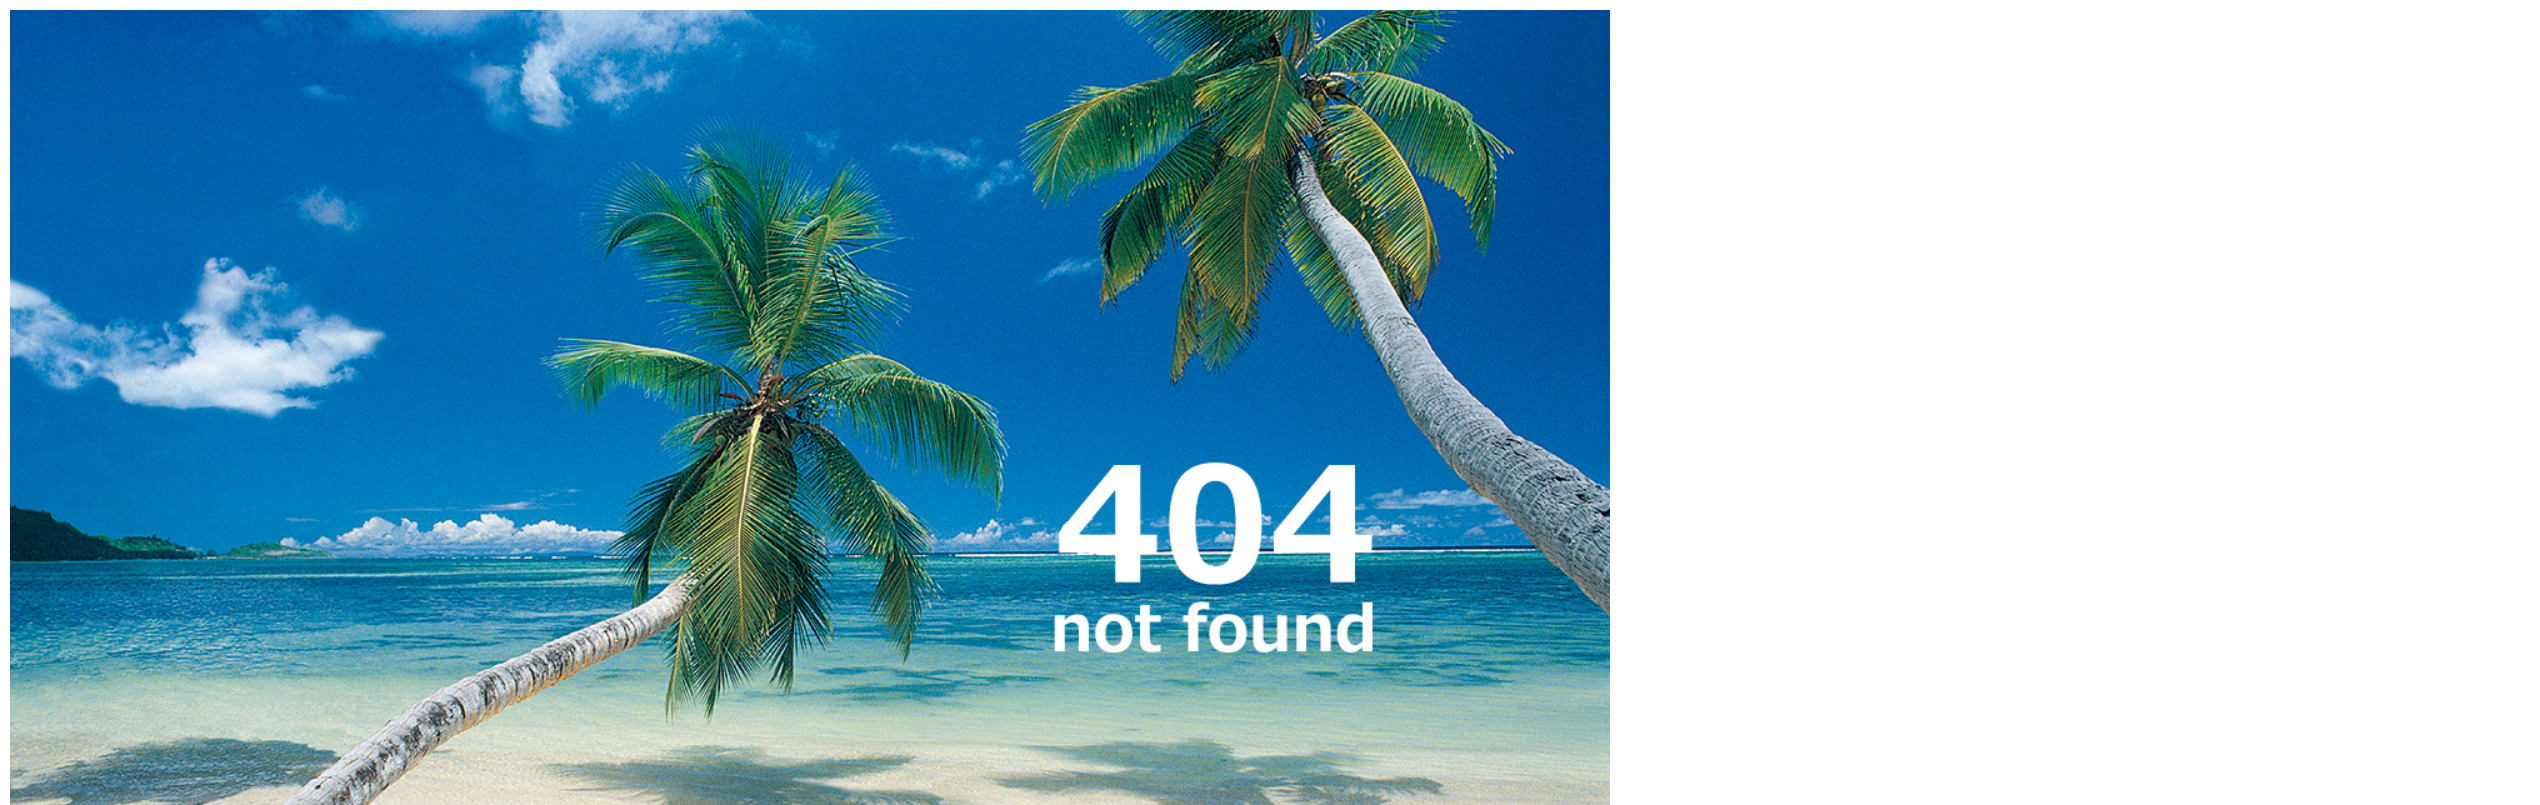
static void picture(SkCanvas* c, const char* path, float l, float t, float r, float b) {
  auto image = SkImages::DeferredFromEncodedData(SkData::MakeFromFileName(path));
  c->drawImageRect(image, SkRect::MakeLTRB(l, t, r, b), SkSamplingOptions());
}

void draw(SkCanvas* c) {
  SkPaint paint;
  paint.setAntiAlias(true);
  c->clear(0xffffffff);
  picture(c, "img_01.png", 10, 10, 1610, 805);
}
